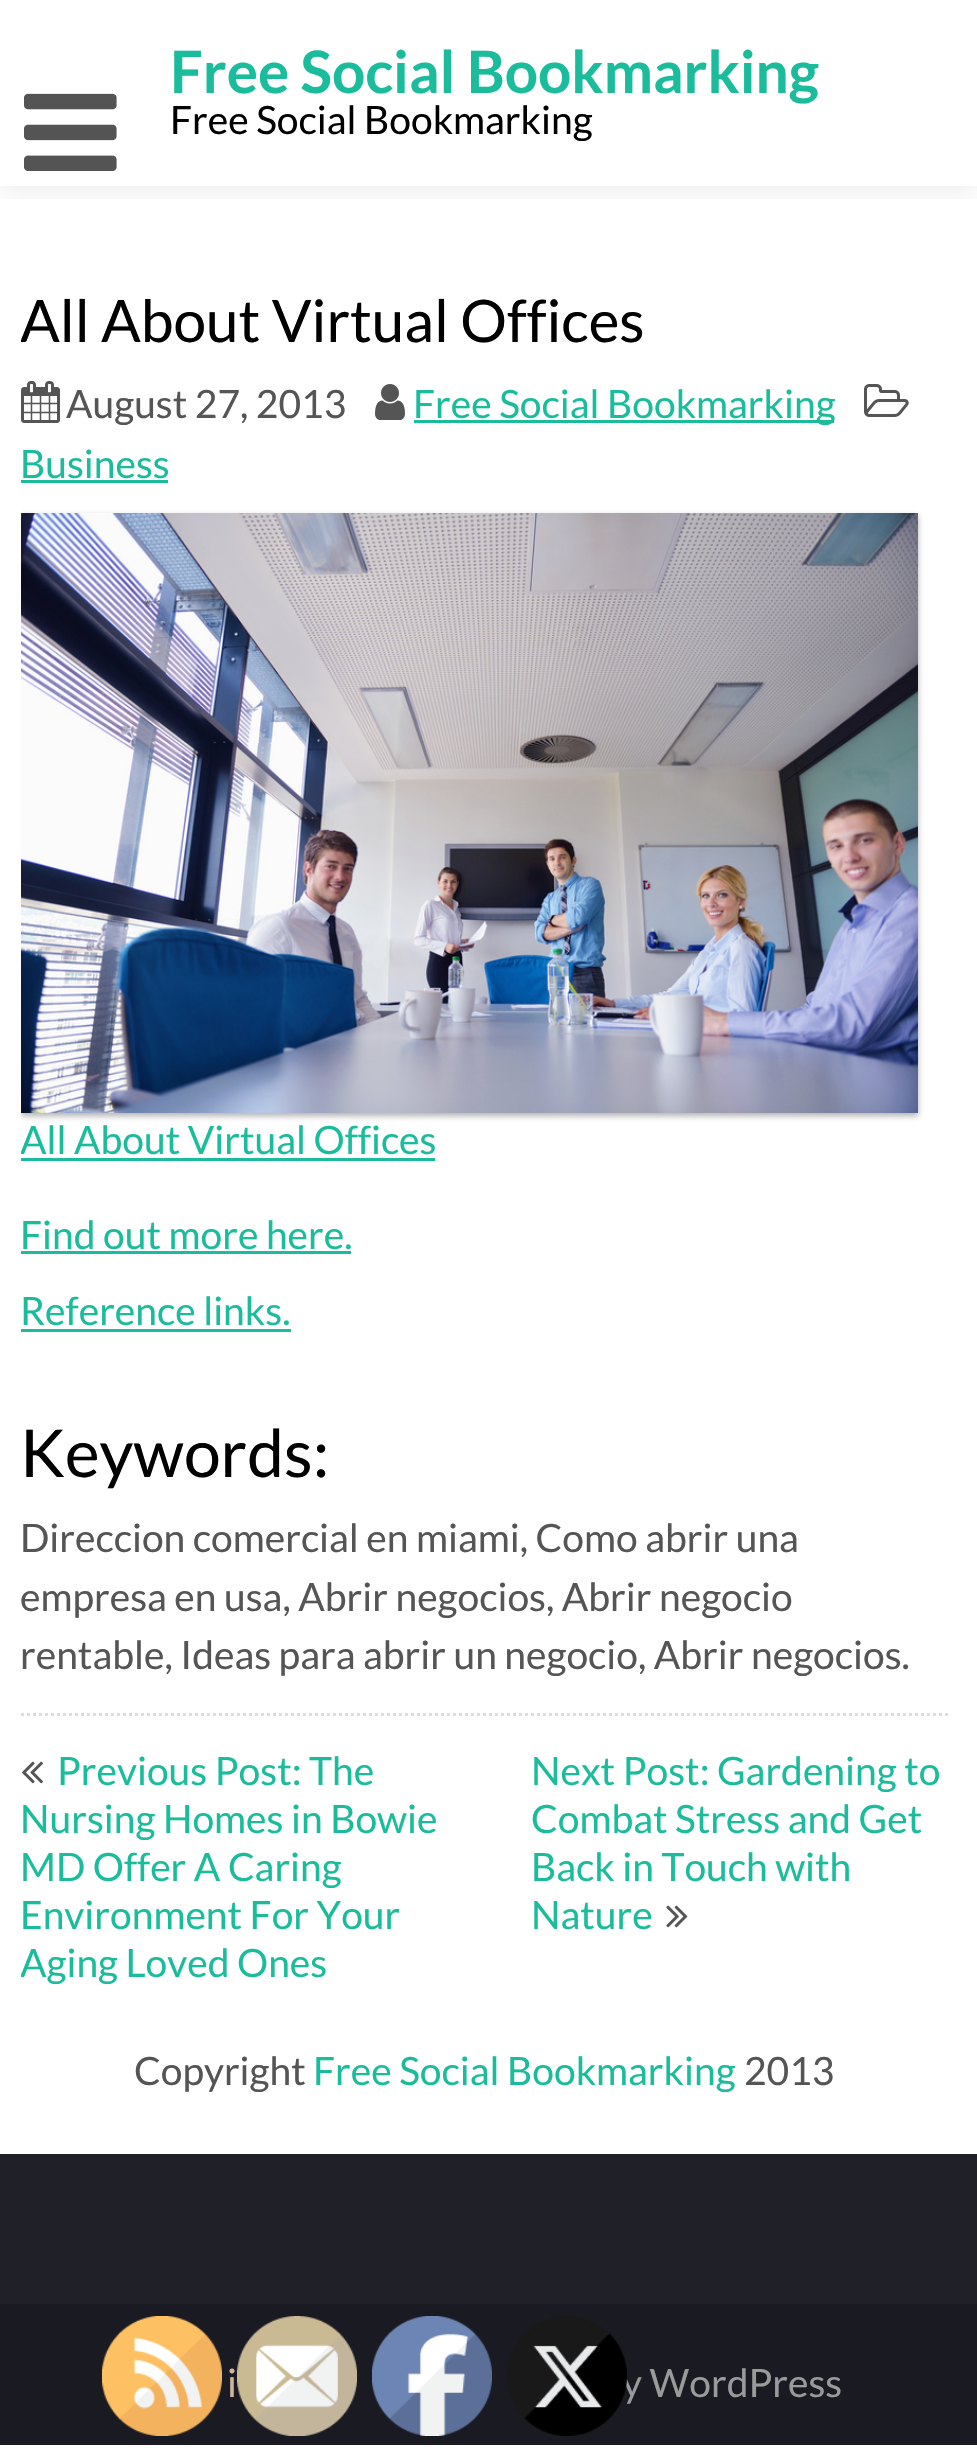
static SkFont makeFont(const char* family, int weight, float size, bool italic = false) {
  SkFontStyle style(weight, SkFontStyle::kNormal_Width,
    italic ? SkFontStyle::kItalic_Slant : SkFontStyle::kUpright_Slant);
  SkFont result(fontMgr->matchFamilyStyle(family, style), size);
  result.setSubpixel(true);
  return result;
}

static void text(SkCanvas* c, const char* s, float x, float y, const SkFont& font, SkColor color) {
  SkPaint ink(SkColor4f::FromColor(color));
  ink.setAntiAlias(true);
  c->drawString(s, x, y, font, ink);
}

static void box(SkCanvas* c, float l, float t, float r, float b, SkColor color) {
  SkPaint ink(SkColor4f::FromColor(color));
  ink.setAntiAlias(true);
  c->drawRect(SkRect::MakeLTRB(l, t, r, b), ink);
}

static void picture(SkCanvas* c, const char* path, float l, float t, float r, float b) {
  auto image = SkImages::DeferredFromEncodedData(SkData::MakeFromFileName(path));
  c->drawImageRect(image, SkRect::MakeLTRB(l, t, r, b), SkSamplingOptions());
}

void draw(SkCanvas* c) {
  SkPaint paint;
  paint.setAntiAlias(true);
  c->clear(0xffffffff);
  c->save();
  c->clipRect(SkRect::MakeLTRB(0, 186, 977, 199));
  paint.setColor(0x1a000000);
  paint.setMaskFilter(SkMaskFilter::MakeBlur(kNormal_SkBlurStyle, 15));
  c->drawRect(SkRect::MakeLTRB(0, 0, 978, 186), paint);
  paint.setMaskFilter(nullptr);
  c->restore();
  picture(c, "img_01.png", 24, 93, 117, 171);
  SkFont face1 = makeFont("Lato", 700, 58.5f);
  text(c, "Free Social Bookmarking", 170, 93, face1, 0xff1abc9c);
  SkFont face2 = makeFont("Lato", 400, 39);
  text(c, "Free Social Bookmarking", 170, 134, face2, 0xff000000);
  c->save();
  c->clipRect(SkRect::MakeLTRB(21, 276, 948, 1716));
  SkFont face3 = makeFont("Lato", 400, 58.5f);
  text(c, "All About Virtual Offices", 20, 342, face3, 0xff000000);
  c->restore();
  picture(c, "img_02.png", 21, 381, 60, 423);
  text(c, "August 27, 2013", 66, 418, face2, 0xff555555);
  picture(c, "img_03.png", 375, 384, 405, 420);
  box(c, 414, 420, 834, 423, 0xff1abc9c);
  text(c, "Free Social Bookmarking", 413, 418, face2, 0xff1abc9c);
  picture(c, "img_04.png", 864, 384, 909, 417);
  text(c, "Business", 20, 478, face2, 0xff1abc9c);
  box(c, 21, 480, 168, 483, 0xff1abc9c);
  c->save();
  c->clipRect(SkRect::MakeLTRB(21, 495, 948, 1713));
  paint.setColor(0x4d000000);
  paint.setMaskFilter(SkMaskFilter::MakeBlur(kNormal_SkBlurStyle, 3));
  c->drawRect(SkRect::MakeLTRB(21, 516, 918, 1116), paint);
  paint.setMaskFilter(nullptr);
  c->restore();
  picture(c, "img_05.png", 21, 513, 918, 1113);
  c->save();
  c->clipRect(SkRect::MakeLTRB(21, 495, 948, 1713));
  text(c, "All About Virtual Offices", 20, 1154, face2, 0xff1abc9c);
  c->restore();
  box(c, 21, 1158, 435, 1161, 0xff1abc9c);
  text(c, "Find out more here.", 20, 1249, face2, 0xff1abc9c);
  box(c, 21, 1251, 351, 1254, 0xff1abc9c);
  text(c, "Reference links.", 20, 1325, face2, 0xff1abc9c);
  box(c, 21, 1329, 291, 1332, 0xff1abc9c);
  SkFont face4 = makeFont("Lato", 400, 66);
  text(c, "Keywords:", 20, 1477, face4, 0xff000000);
  text(c, "Direccion comercial en miami, Como abrir una", 20, 1552, face2, 0xff555555);
  text(c, "empresa en usa, Abrir negocios, Abrir negocio", 20, 1611, face2, 0xff555555);
  text(c, "rentable, Ideas para abrir un negocio, Abrir negocios.", 20, 1669, face2, 0xff555555);
  paint.setStyle(SkPaint::kStroke_Style);
  paint.setStrokeWidth(3);
  paint.setColor(0xffdddddd);
  paint.setPathEffect(SkDashPathEffect::Make({{3, 3}}, 0));
  c->drawPath(SkPathBuilder().moveTo(21, 1714.5f).lineTo(948, 1714.5f).detach(), paint);
  paint.setPathEffect(nullptr);
  picture(c, "img_06.png", 22, 1761, 43, 1784);
  text(c, "Previous Post: The", 57, 1785, face2, 0xff1abc9c);
  text(c, "Nursing Homes in Bowie", 20, 1833, face2, 0xff1abc9c);
  text(c, "MD Offer A Caring", 20, 1881, face2, 0xff1abc9c);
  text(c, "Environment For Your", 20, 1929, face2, 0xff1abc9c);
  c->save();
  c->clipRect(SkRect::MakeLTRB(21, 261, 948, 1986));
  text(c, "Aging Loved Ones", 20, 1977, face2, 0xff1abc9c);
  c->restore();
  text(c, "Next Post: Gardening to", 531, 1785, face2, 0xff1abc9c);
  text(c, "Combat Stress and Get", 531, 1833, face2, 0xff1abc9c);
  text(c, "Back in Touch with", 531, 1881, face2, 0xff1abc9c);
  text(c, "Nature", 531, 1929, face2, 0xff1abc9c);
  picture(c, "img_07.png", 666, 1905, 688, 1928);
  text(c, "Copyright", 134, 2085, face2, 0xff555555);
  text(c, "Free Social Bookmarking", 313, 2085, face2, 0xff1abc9c);
  text(c, "2013", 744, 2085, face2, 0xff555555);
  box(c, 0, 2154, 977, 2304, 0xff202029);
  box(c, 0, 2304, 977, 2445, 0xff1a1a22);
  text(c, "i", 227, 2397, face2, 0xffd0b59e);
  text(c, "y WordPress", 622, 2397, face2, 0xff9a9a9a);
  picture(c, "img_08.png", 102, 2316, 222, 2436);
  picture(c, "img_09.png", 237, 2316, 357, 2436);
  picture(c, "img_10.png", 372, 2316, 492, 2436);
  picture(c, "img_11.png", 507, 2316, 627, 2436);
}
